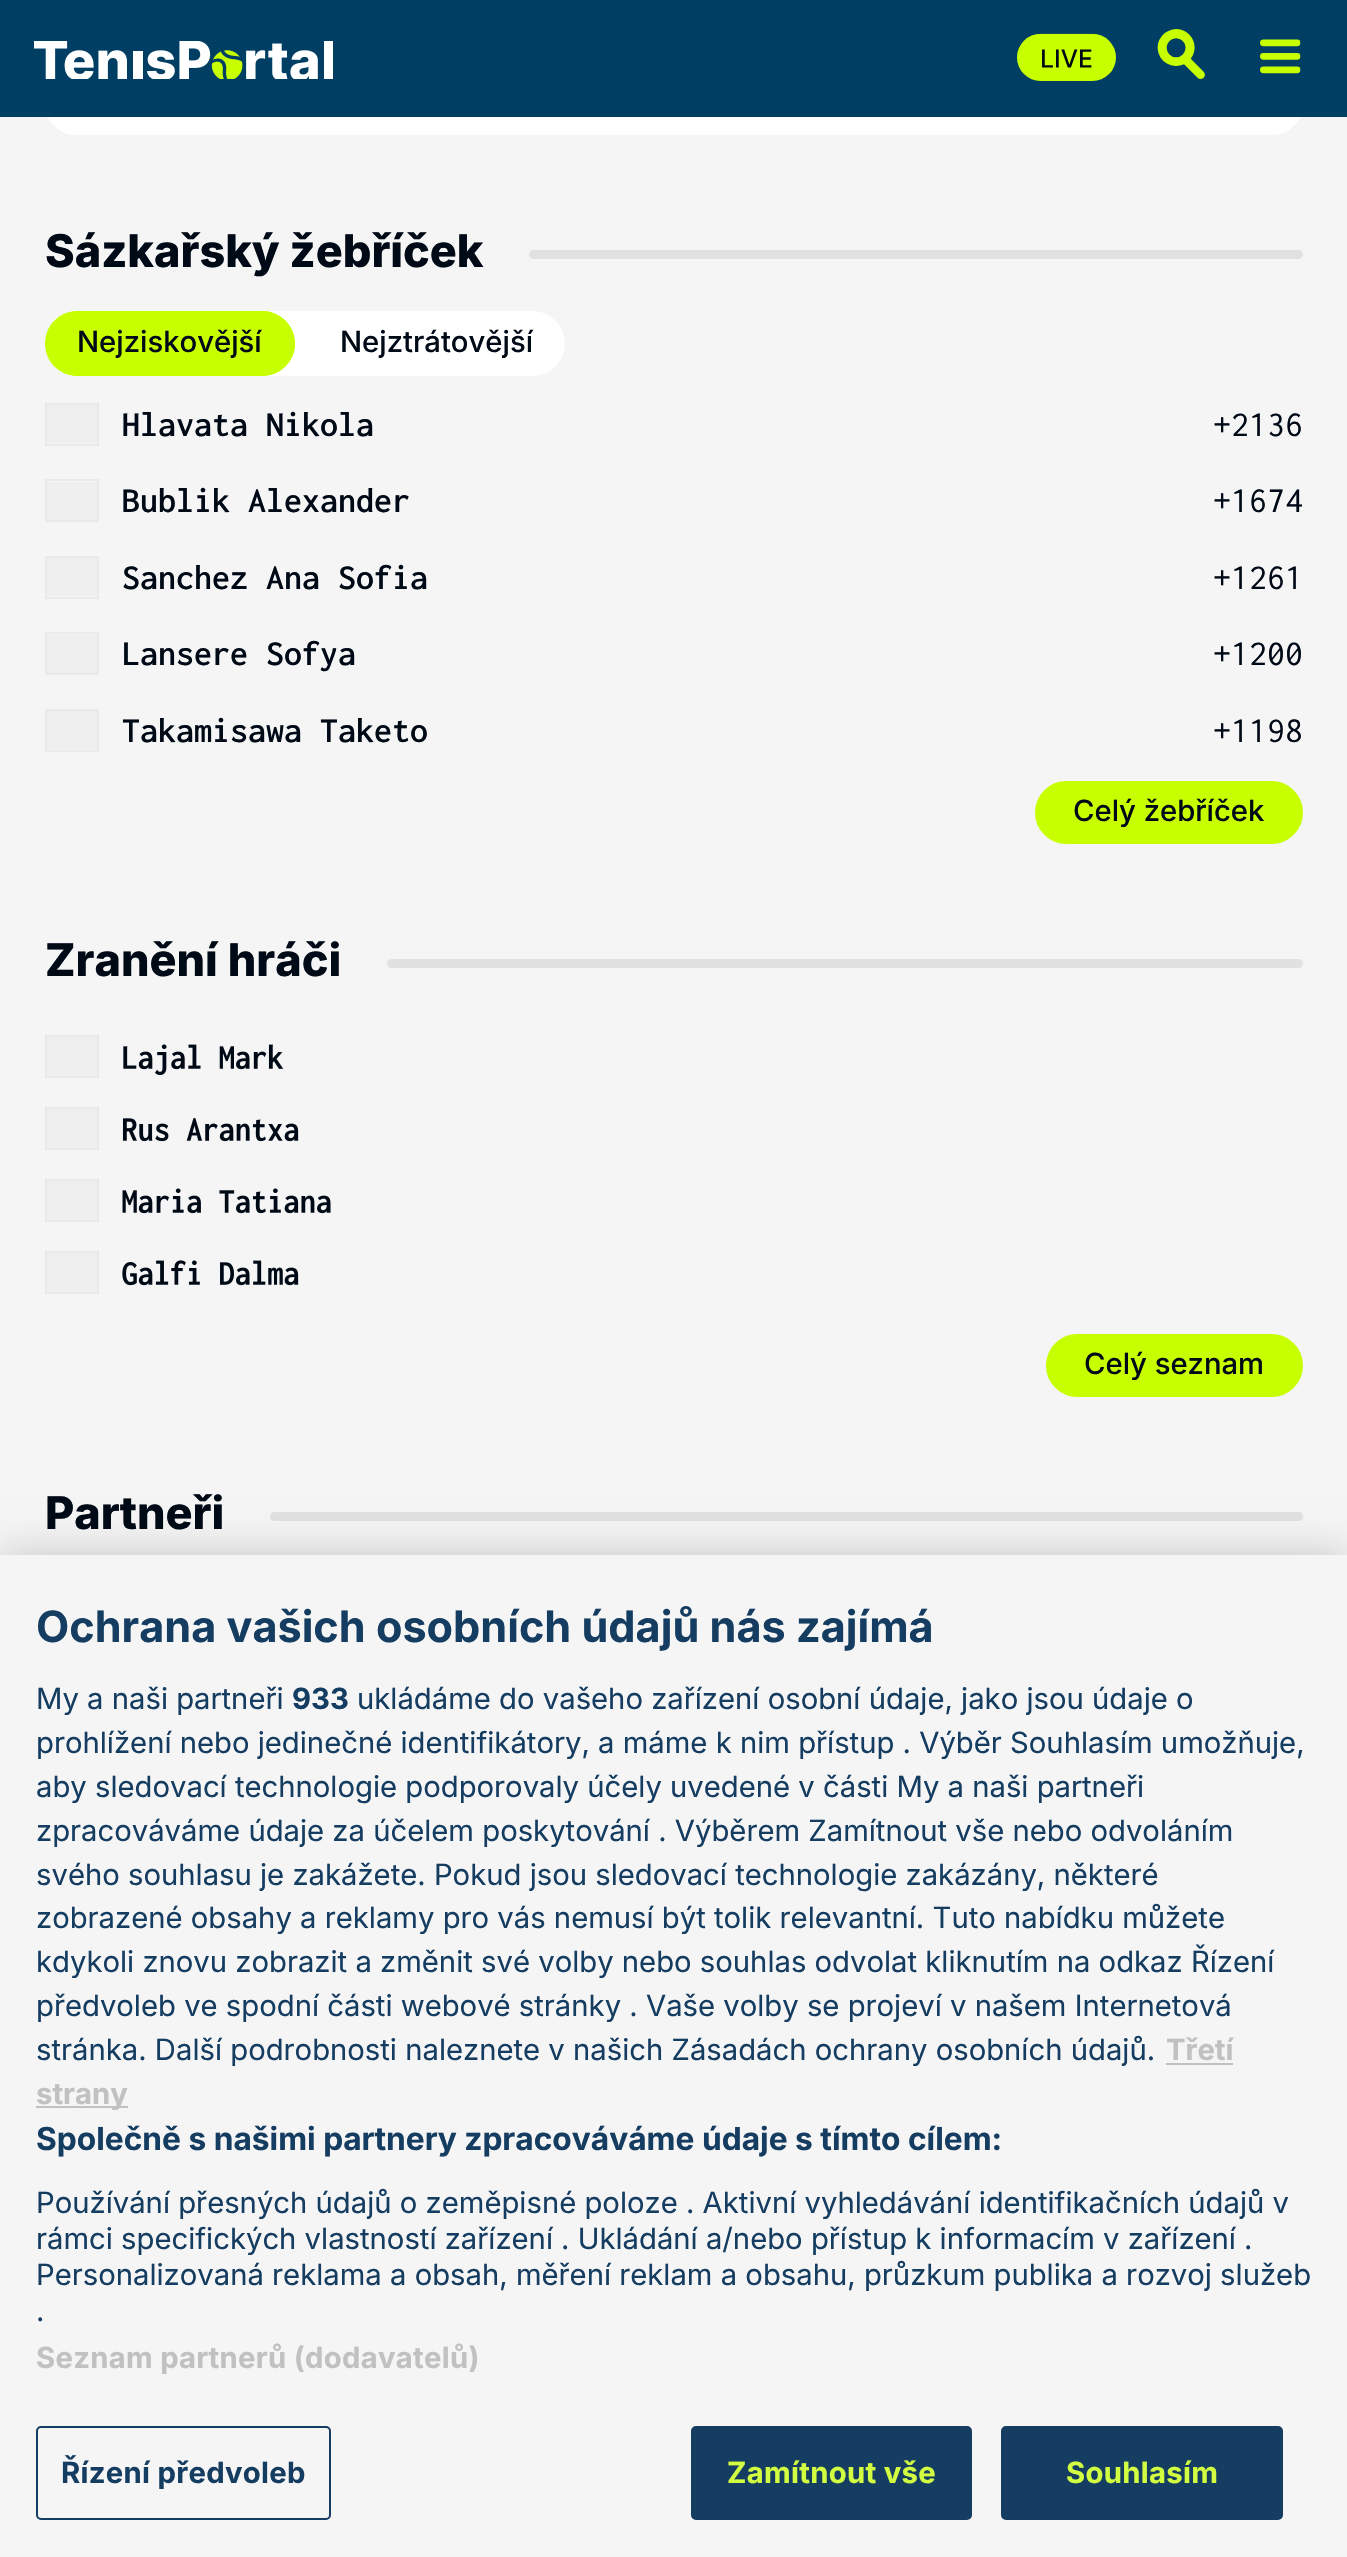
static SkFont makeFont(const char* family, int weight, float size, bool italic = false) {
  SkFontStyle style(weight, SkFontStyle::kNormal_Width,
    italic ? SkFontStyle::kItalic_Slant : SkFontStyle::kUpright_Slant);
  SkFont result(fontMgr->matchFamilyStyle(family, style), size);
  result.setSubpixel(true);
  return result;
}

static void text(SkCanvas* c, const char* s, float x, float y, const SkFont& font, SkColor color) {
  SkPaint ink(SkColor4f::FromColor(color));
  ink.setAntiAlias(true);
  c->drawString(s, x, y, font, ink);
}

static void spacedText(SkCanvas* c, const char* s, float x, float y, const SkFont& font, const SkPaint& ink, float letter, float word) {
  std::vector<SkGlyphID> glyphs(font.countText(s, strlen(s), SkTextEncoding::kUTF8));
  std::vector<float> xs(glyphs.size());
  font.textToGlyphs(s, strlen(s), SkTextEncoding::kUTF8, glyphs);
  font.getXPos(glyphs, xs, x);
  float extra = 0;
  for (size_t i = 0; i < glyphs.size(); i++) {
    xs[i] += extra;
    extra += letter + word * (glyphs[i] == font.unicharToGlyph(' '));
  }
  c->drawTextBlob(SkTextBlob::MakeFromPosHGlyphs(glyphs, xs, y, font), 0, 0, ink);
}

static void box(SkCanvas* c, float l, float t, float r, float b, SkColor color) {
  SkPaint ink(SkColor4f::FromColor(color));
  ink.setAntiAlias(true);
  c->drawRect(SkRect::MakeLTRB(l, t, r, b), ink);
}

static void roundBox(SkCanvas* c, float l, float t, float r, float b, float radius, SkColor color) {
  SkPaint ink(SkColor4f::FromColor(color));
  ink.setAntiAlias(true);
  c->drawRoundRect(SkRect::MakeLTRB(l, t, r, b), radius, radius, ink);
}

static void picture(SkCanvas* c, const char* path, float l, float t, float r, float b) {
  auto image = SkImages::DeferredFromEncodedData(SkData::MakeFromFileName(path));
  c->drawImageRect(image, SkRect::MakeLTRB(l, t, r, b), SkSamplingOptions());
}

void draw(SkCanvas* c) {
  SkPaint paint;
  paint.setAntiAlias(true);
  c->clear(0xfff5f5f5);
  roundBox(c, 45, 74, 1303, 135, 30.5f, 0xffffffff);
  box(c, 0, 0, 1347, 117, 0xff003e63);
  picture(c, "img_01.png", 34, 41, 333, 79);
  picture(c, "img_02.png", 1017, 33, 1116, 81);
  picture(c, "img_03.png", 1157, 29, 1205, 79);
  picture(c, "img_04.png", 1260, 39, 1301, 74);
  SkFont face1 = makeFont("Inter", 800, 45);
  text(c, "Sázkařský žebříček", 45, 267, face1, 0xff000916);
  roundBox(c, 529, 250, 1303, 259, 4.5f, 0xffe1e1e1);
  roundBox(c, 45, 311, 565, 376, 32.5f, 0xffffffff);
  c->save();
  c->clipPath(SkPathBuilder().moveTo(77.5f, 311).lineTo(532.5f, 311).cubicTo(550.5f, 311, 565, 325.5f, 565, 343.5f).cubicTo(565, 361.5f, 550.5f, 376, 532.5f, 376).lineTo(77.5f, 376).cubicTo(59.5f, 376, 45, 361.5f, 45, 343.5f).cubicTo(45, 325.5f, 59.5f, 311, 77.5f, 311).close().detach(), true);
  roundBox(c, 43, 311, 295, 376, 32.5f, 0xffc8ff00);
  c->restore();
  paint.setColor(0xffc8ff00);
  c->drawPath(SkPathBuilder(SkPathFillType::kEvenOdd).moveTo(78, 311).cubicTo(60, 311, 45, 326, 45, 344).cubicTo(45, 361, 60, 376, 78, 376).lineTo(262, 376).cubicTo(280, 376, 295, 361, 295, 344).cubicTo(295, 326, 280, 311, 262, 311).close().moveTo(76, 313).lineTo(262, 313).cubicTo(279, 313, 293, 327, 293, 344).cubicTo(293, 360, 279, 374, 262, 374).lineTo(76, 374).cubicTo(59, 374, 45, 360, 45, 344).cubicTo(45, 327, 59, 313, 76, 313).close().detach(), paint);
  SkFont face2 = makeFont("Inter", 500, 29.25f);
  text(c, "Nejziskovější", 77, 352, face2, 0xff000916);
  text(c, "Nejztrátovější", 340, 352, face2, 0xff000916);
  paint.setStyle(SkPaint::kStroke_Style);
  paint.setStrokeWidth(2);
  paint.setColor(0xffe9e9e9);
  c->drawRect(SkRect::MakeLTRB(46, 404, 98, 445), paint);
  box(c, 47, 405, 97, 443, 0xffefefef);
  SkFont face3 = makeFont("Inconsolata", 600, 36);
  text(c, "Hlavata Nikola", 122, 436, face3, 0xff000916);
  SkFont face4 = makeFont("Inconsolata", 400, 36);
  text(c, "+2136", 1213, 436, face4, 0xff000916);
  c->drawRect(SkRect::MakeLTRB(46, 480, 98, 521), paint);
  box(c, 47, 482, 97, 520, 0xffefefef);
  text(c, "Bublik Alexander", 122, 512, face3, 0xff000916);
  text(c, "+1674", 1213, 512, face4, 0xff000916);
  c->drawRect(SkRect::MakeLTRB(46, 557, 98, 598), paint);
  box(c, 47, 558, 97, 596, 0xffefefef);
  text(c, "Sanchez Ana Sofia", 122, 589, face3, 0xff000916);
  text(c, "+1261", 1213, 589, face4, 0xff000916);
  c->drawRect(SkRect::MakeLTRB(46, 633, 98, 674), paint);
  box(c, 47, 635, 97, 673, 0xffefefef);
  text(c, "Lansere Sofya", 122, 665, face3, 0xff000916);
  text(c, "+1200", 1213, 665, face4, 0xff000916);
  c->drawRect(SkRect::MakeLTRB(46, 710, 98, 751), paint);
  box(c, 47, 711, 97, 749, 0xffefefef);
  text(c, "Takamisawa Taketo", 122, 742, face3, 0xff000916);
  text(c, "+1198", 1213, 742, face4, 0xff000916);
  paint.setStyle(SkPaint::kFill_Style);
  paint.setColor(0xffc8ff00);
  c->drawRoundRect(SkRect::MakeLTRB(1037.5f, 783.5f, 1300.5f, 841.5f), 29, 29, paint);
  paint.setStyle(SkPaint::kStroke_Style);
  paint.setStrokeWidth(5);
  c->drawRoundRect(SkRect::MakeLTRB(1037.5f, 783.5f, 1300.5f, 841.5f), 29, 29, paint);
  text(c, "Celý žebříček", 1073, 821, face2, 0xff000916);
  text(c, "Zranění hráči", 45, 976, face1, 0xff000916);
  roundBox(c, 387, 959, 1303, 968, 4.5f, 0xffe1e1e1);
  paint.setStrokeWidth(2);
  paint.setColor(0xffe9e9e9);
  c->drawRect(SkRect::MakeLTRB(46, 1036, 98, 1077), paint);
  box(c, 47, 1037, 97, 1076, 0xffefefef);
  picture(c, "img_05.png", 123, 1044, 284, 1075);
  c->drawRect(SkRect::MakeLTRB(46, 1108, 98, 1149), paint);
  box(c, 47, 1109, 97, 1148, 0xffefefef);
  picture(c, "img_06.png", 122, 1118, 299, 1142);
  c->drawRect(SkRect::MakeLTRB(46, 1180, 98, 1221), paint);
  box(c, 47, 1181, 97, 1220, 0xffefefef);
  picture(c, "img_07.png", 122, 1188, 331, 1214);
  c->drawRect(SkRect::MakeLTRB(46, 1252, 98, 1293), paint);
  box(c, 47, 1253, 97, 1292, 0xffefefef);
  picture(c, "img_08.png", 122, 1260, 299, 1286);
  paint.setStyle(SkPaint::kFill_Style);
  paint.setColor(0xffc8ff00);
  c->drawRoundRect(SkRect::MakeLTRB(1048.5f, 1336.5f, 1300.5f, 1394.5f), 29, 29, paint);
  paint.setStyle(SkPaint::kStroke_Style);
  paint.setStrokeWidth(5);
  c->drawRoundRect(SkRect::MakeLTRB(1048.5f, 1336.5f, 1300.5f, 1394.5f), 29, 29, paint);
  text(c, "Celý seznam", 1084, 1374, face2, 0xff000916);
  text(c, "Partneři", 45, 1529, face1, 0xff000916);
  roundBox(c, 270, 1512, 1303, 1521, 4.5f, 0xffe1e1e1);
  paint.setStyle(SkPaint::kFill_Style);
  paint.setColor(0x33000000);
  paint.setMaskFilter(SkMaskFilter::MakeBlur(kNormal_SkBlurStyle, 20));
  c->drawRect(SkRect::MakeLTRB(0, 1555, 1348, 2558), paint);
  paint.setMaskFilter(nullptr);
  box(c, 0, 1555, 1347, 2557, 0xfff5f5f5);
  SkFont face5 = makeFont("Inter", 700, 43.2f);
  text(c, "Ochrana vašich osobních údajů nás zajímá", 36, 1642, face5, 0xff153d61);
  SkFont face6 = makeFont("Inter", 400, 29.25f);
  text(c, "My a naši partneři", 36, 1709, face6, 0xff153d61);
  SkFont face7 = makeFont("Inter", 700, 29.25f);
  text(c, "933", 292, 1709, face7, 0xff153d61);
  text(c, "ukládáme do vašeho zařízení osobní údaje, jako jsou údaje o", 357, 1709, face6, 0xff153d61);
  text(c, "prohlížení nebo jedinečné identifikátory, a máme k nim přístup . Výběr Souhlasím umožňuje,", 36, 1753, face6, 0xff153d61);
  text(c, "aby sledovací technologie podporovaly účely uvedené v části My a naši partneři", 36, 1797, face6, 0xff153d61);
  text(c, "zpracováváme údaje za účelem poskytování . Výběrem Zamítnout vše nebo odvoláním", 36, 1841, face6, 0xff153d61);
  text(c, "svého souhlasu je zakážete. Pokud jsou sledovací technologie zakázány, některé", 36, 1885, face6, 0xff153d61);
  text(c, "zobrazené obsahy a reklamy pro vás nemusí být tolik relevantní. Tuto nabídku můžete", 36, 1928, face6, 0xff153d61);
  text(c, "kdykoli znovu zobrazit a změnit své volby nebo souhlas odvolat kliknutím na odkaz Řízení", 36, 1972, face6, 0xff153d61);
  text(c, "předvoleb ve spodní části webové stránky . Vaše volby se projeví v našem Internetová", 36, 2016, face6, 0xff153d61);
  text(c, "stránka. Další podrobnosti naleznete v našich Zásadách ochrany osobních údajů.", 36, 2060, face6, 0xff153d61);
  text(c, "Třetí", 1166, 2060, face7, 0xffc1c1c1);
  box(c, 1166, 2063, 1233, 2065, 0xffc1c1c1);
  box(c, 36, 2106, 128, 2108, 0xffc1c1c1);
  text(c, "strany", 36, 2104, face7, 0xffc1c1c1);
  SkFont face8 = makeFont("Inter", 700, 31.7f);
  text(c, "Společně s našimi partnery zpracováváme údaje s tímto cílem:", 36, 2150, face8, 0xff153d61);
  text(c, "Používání přesných údajů o zeměpisné poloze . Aktivní vyhledávání identifikačních údajů v", 36, 2213, face6, 0xff153d61);
  text(c, "rámci specifických vlastností zařízení", 36, 2249, face6, 0xff153d61);
  text(c, ". Ukládání a/nebo přístup k informacím v zařízení", 561, 2249, face6, 0xff153d61);
  text(c, ".", 1244, 2249, face6, 0xff153d61);
  text(c, "Personalizovaná reklama a obsah, měření reklam a obsahu, průzkum publika a rozvoj služeb", 36, 2285, face6, 0xff153d61);
  text(c, ".", 36, 2321, face6, 0xff153d61);
  paint.setColor(0xffc1c1c1);
  spacedText(c, "Seznam partnerů (dodavatelů)", 36, 2368, face7, paint, 0.3f, 0);
  paint.setStyle(SkPaint::kStroke_Style);
  paint.setStrokeWidth(2);
  paint.setColor(0xff153d61);
  c->drawRoundRect(SkRect::MakeLTRB(37, 2427, 330, 2519), 4, 4, paint);
  paint.setStyle(SkPaint::kFill_Style);
  spacedText(c, "Řízení předvoleb", 61, 2483, face7, paint, 0.3f, 0);
  c->drawRoundRect(SkRect::MakeLTRB(692, 2427, 971, 2519), 4, 4, paint);
  paint.setStyle(SkPaint::kStroke_Style);
  c->drawRoundRect(SkRect::MakeLTRB(692, 2427, 971, 2519), 4, 4, paint);
  paint.setStyle(SkPaint::kFill_Style);
  paint.setColor(0xffd2fd41);
  spacedText(c, "Zamítnout vše", 727, 2483, face7, paint, 0.3f, 0);
  paint.setColor(0xff153d61);
  c->drawRoundRect(SkRect::MakeLTRB(1002, 2427, 1282, 2519), 4, 4, paint);
  paint.setStyle(SkPaint::kStroke_Style);
  c->drawRoundRect(SkRect::MakeLTRB(1002, 2427, 1282, 2519), 4, 4, paint);
  paint.setStyle(SkPaint::kFill_Style);
  paint.setColor(0xffd2fd41);
  spacedText(c, "Souhlasím", 1066, 2483, face7, paint, 0.3f, 0);
}
